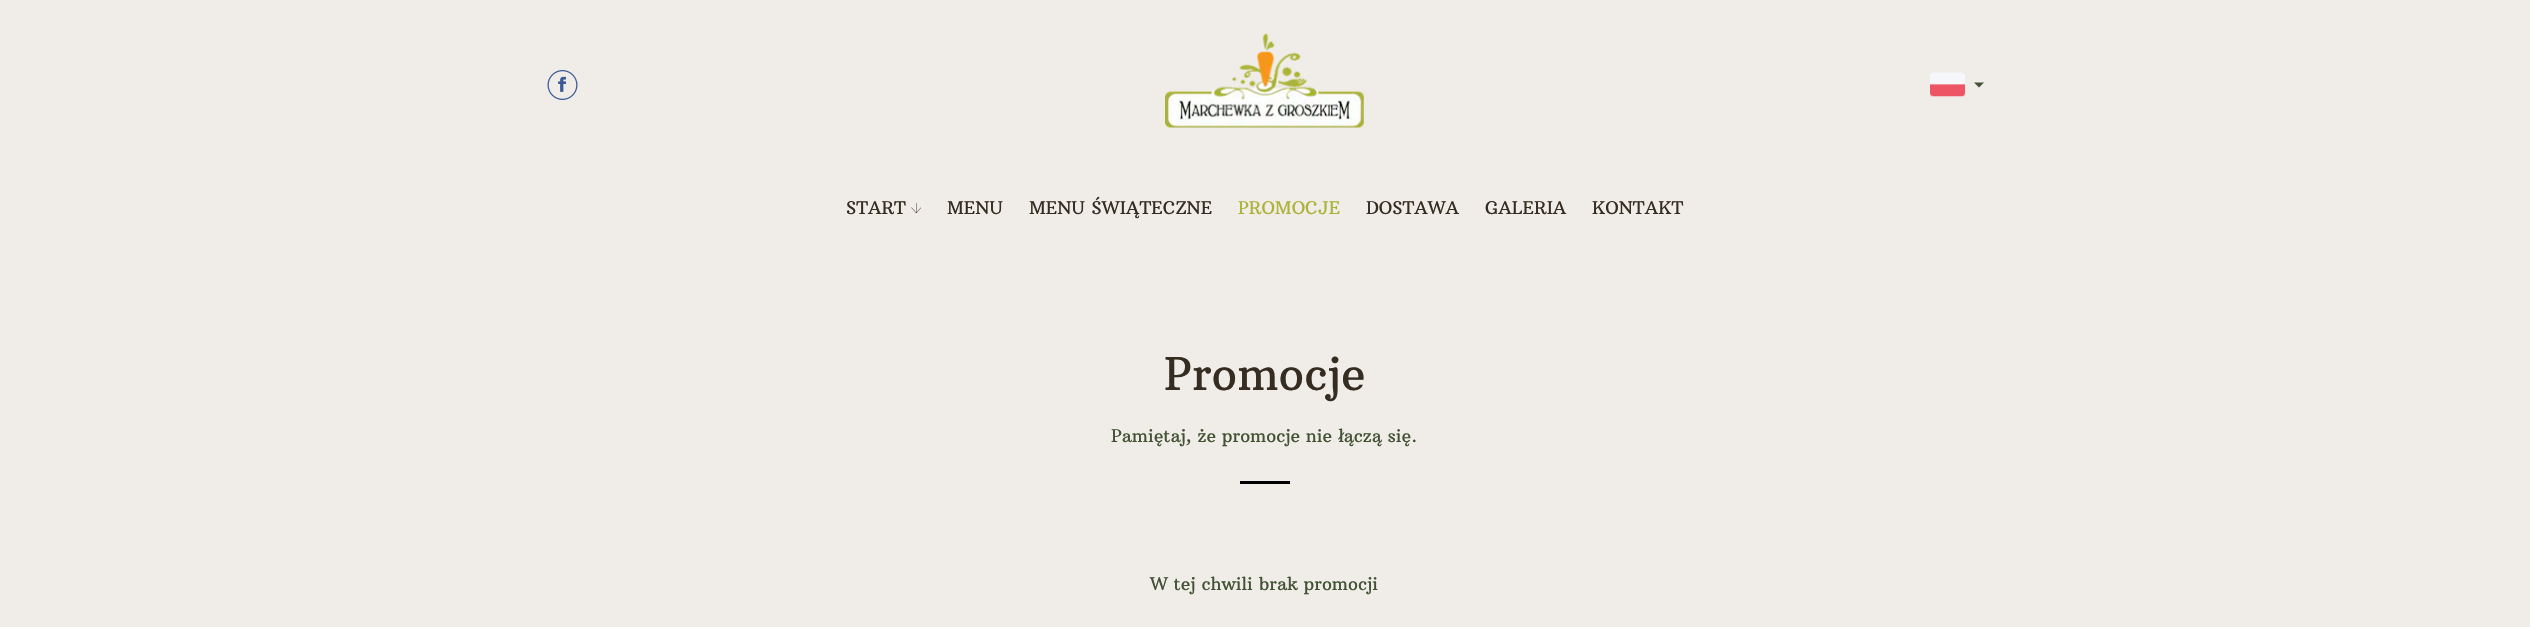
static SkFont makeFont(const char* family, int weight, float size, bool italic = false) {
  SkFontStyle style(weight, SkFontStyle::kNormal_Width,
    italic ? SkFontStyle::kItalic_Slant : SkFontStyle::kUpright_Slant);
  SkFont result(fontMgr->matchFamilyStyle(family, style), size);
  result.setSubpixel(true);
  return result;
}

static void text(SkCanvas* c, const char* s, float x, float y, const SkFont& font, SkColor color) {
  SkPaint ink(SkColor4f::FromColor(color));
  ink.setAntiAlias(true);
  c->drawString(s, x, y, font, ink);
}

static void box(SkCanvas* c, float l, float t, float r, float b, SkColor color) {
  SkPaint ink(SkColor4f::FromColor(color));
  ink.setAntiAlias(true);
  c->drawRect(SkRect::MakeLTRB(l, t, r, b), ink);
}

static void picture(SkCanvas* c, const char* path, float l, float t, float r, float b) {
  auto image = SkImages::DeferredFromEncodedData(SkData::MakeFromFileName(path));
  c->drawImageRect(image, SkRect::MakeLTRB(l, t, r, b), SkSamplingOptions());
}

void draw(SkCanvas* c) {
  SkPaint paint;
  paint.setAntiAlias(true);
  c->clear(0xfff0ece7);
  picture(c, "img_01.png", 547, 70, 578, 100);
  picture(c, "img_02.png", 1165, 33, 1364, 128);
  picture(c, "img_03.png", 1930, 72, 1965, 97);
  paint.setColor(0xff415235);
  c->drawPath(SkPathBuilder().moveTo(1974, 82.5f).lineTo(1984, 82.5f).lineTo(1979, 87.5f).close().detach(), paint);
  SkFont face1 = makeFont("Arbutus Slab", 400, 17.5f);
  text(c, "START", 846, 214, face1, 0xff362d22);
  picture(c, "img_04.png", 911, 203, 921, 214);
  text(c, "MENU", 947, 214, face1, 0xff362d22);
  text(c, "MENU ŚWIĄTECZNE", 1029, 214, face1, 0xff362d22);
  text(c, "PROMOCJE", 1238, 214, face1, 0xffabb338);
  text(c, "DOSTAWA", 1366, 214, face1, 0xff362d22);
  text(c, "GALERIA", 1485, 214, face1, 0xff362d22);
  text(c, "KONTAKT", 1592, 214, face1, 0xff362d22);
  SkFont face2 = makeFont("Arbutus Slab", 400, 45);
  text(c, "Promocje", 1164, 390, face2, 0xff362d22);
  text(c, "Pamiętaj, że promocje nie łączą się.", 1111, 442, face1, 0xff415235);
  box(c, 1240, 481, 1290, 484, 0xff000000);
  text(c, "W tej chwili brak promocji", 1150, 590, face1, 0xff415235);
}
